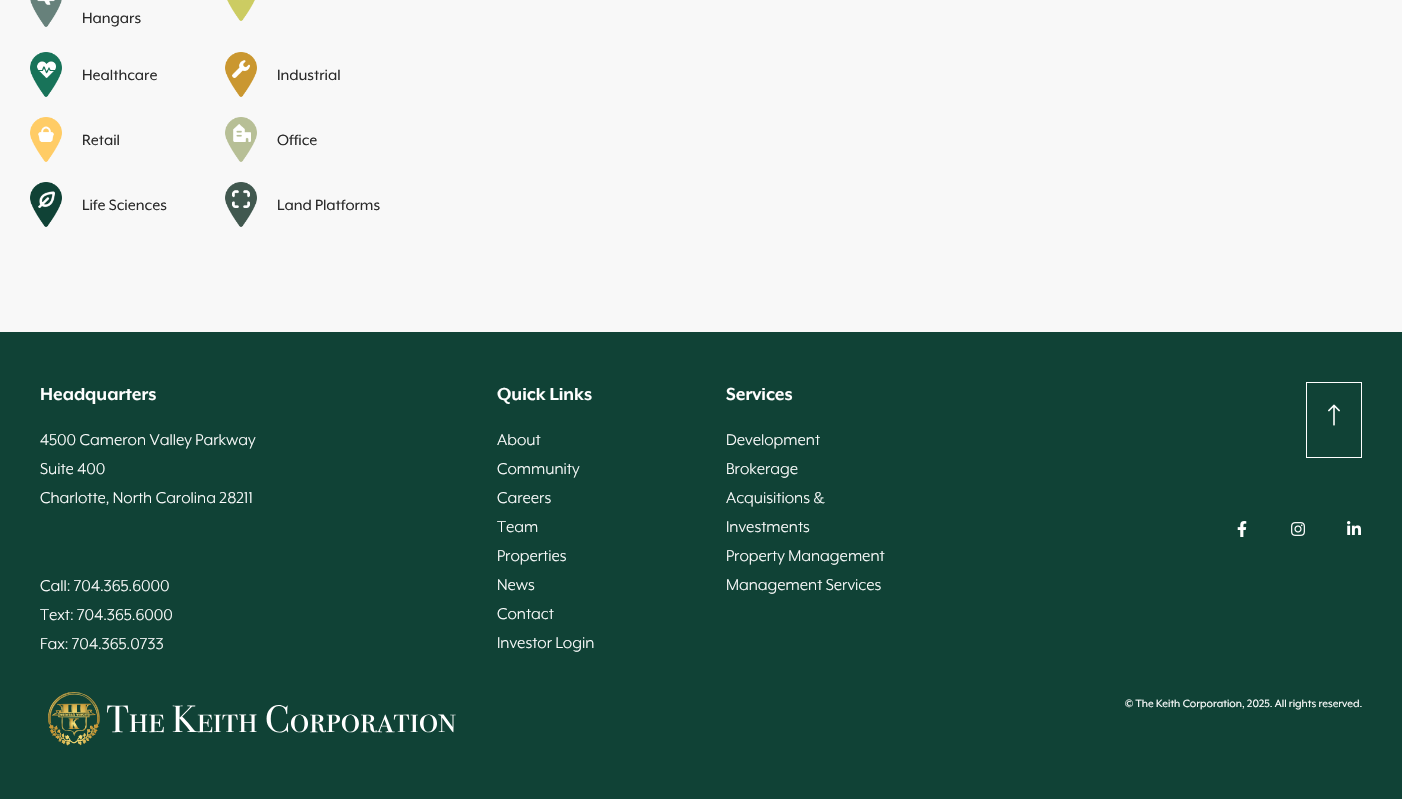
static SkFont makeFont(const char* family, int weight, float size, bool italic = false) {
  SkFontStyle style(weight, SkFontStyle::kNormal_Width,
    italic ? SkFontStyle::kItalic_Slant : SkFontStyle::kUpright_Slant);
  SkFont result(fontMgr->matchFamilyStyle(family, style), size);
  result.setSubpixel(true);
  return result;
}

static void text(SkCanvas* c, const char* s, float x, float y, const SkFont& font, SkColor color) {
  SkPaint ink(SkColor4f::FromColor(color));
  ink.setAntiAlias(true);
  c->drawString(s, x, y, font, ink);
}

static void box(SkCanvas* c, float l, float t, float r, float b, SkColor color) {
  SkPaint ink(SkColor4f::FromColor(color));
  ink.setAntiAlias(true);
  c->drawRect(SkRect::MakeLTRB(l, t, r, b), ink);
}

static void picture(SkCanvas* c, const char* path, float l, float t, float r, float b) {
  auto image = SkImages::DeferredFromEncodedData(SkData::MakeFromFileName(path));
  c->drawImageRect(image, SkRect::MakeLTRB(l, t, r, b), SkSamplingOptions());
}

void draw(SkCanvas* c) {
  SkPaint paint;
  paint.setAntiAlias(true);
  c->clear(0xff104236);
  box(c, 0, 0, 1402, 332, 0xfff8f8f8);
  picture(c, "img_01.png", 30, 0, 62, 27);
  SkFont face1 = makeFont("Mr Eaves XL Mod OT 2", 400, 17);
  text(c, "Hangars", 82, 23, face1, 0xff292929);
  picture(c, "img_02.png", 227, 0, 255, 21);
  picture(c, "img_03.png", 30, 52, 62, 97);
  text(c, "Healthcare", 82, 80, face1, 0xff292929);
  picture(c, "img_04.png", 225, 52, 257, 97);
  text(c, "Industrial", 277, 80, face1, 0xff292929);
  picture(c, "img_05.png", 30, 117, 62, 162);
  text(c, "Retail", 82, 145, face1, 0xff292929);
  picture(c, "img_06.png", 225, 117, 257, 162);
  text(c, "Office", 277, 145, face1, 0xff292929);
  picture(c, "img_07.png", 30, 182, 62, 227);
  text(c, "Life Sciences", 82, 210, face1, 0xff292929);
  picture(c, "img_08.png", 225, 182, 257, 227);
  text(c, "Land Platforms", 277, 210, face1, 0xff292929);
  SkFont face2 = makeFont("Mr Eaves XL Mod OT", 700, 20);
  text(c, "Headquarters", 40, 400, face2, 0xffffffff);
  SkFont face3 = makeFont("Mr Eaves XL Mod OT", 400, 18);
  text(c, "4500 Cameron Valley Parkway", 40, 445, face3, 0xffffffff);
  text(c, "Suite 400", 40, 474, face3, 0xffffffff);
  text(c, "Charlotte, North Carolina 28211", 40, 503, face3, 0xffffffff);
  text(c, "Call: 704.365.6000", 40, 591, face3, 0xffffffff);
  text(c, "Text: 704.365.6000", 40, 620, face3, 0xffffffff);
  text(c, "Fax: 704.365.0733", 40, 649, face3, 0xffffffff);
  text(c, "Quick Links", 497, 400, face2, 0xffffffff);
  text(c, "About", 497, 445, face3, 0xffffffff);
  text(c, "Community", 497, 474, face3, 0xffffffff);
  text(c, "Careers", 497, 503, face3, 0xffffffff);
  text(c, "Team", 497, 532, face3, 0xffffffff);
  text(c, "Properties", 497, 561, face3, 0xffffffff);
  text(c, "News", 497, 590, face3, 0xffffffff);
  text(c, "Contact", 497, 619, face3, 0xffffffff);
  text(c, "Investor Login", 497, 648, face3, 0xffffffff);
  text(c, "Services", 726, 400, face2, 0xffffffff);
  text(c, "Development", 726, 445, face3, 0xffffffff);
  text(c, "Brokerage", 726, 474, face3, 0xffffffff);
  text(c, "Acquisitions &", 726, 503, face3, 0xffffffff);
  text(c, "Investments", 726, 532, face3, 0xffffffff);
  text(c, "Property Management", 726, 561, face3, 0xffffffff);
  text(c, "Management Services", 726, 590, face3, 0xffffffff);
  paint.setStyle(SkPaint::kStroke_Style);
  paint.setStrokeWidth(1);
  paint.setColor(0xffffffff);
  c->drawRect(SkRect::MakeLTRB(1306.5f, 382.5f, 1361.5f, 457.5f), paint);
  picture(c, "img_09.png", 1328, 404, 1340, 426);
  picture(c, "img_10.png", 1237, 521, 1247, 537);
  picture(c, "img_11.png", 1291, 522, 1305, 536);
  picture(c, "img_12.png", 1347, 521, 1361, 535);
  picture(c, "img_13.png", 48, 692, 456, 746);
  SkFont face4 = makeFont("Mr Eaves XL Mod OT 2", 400, 12);
  text(c, "© The Keith Corporation, 2025. All rights reserved.", 1125, 707, face4, 0xffffffff);
}
